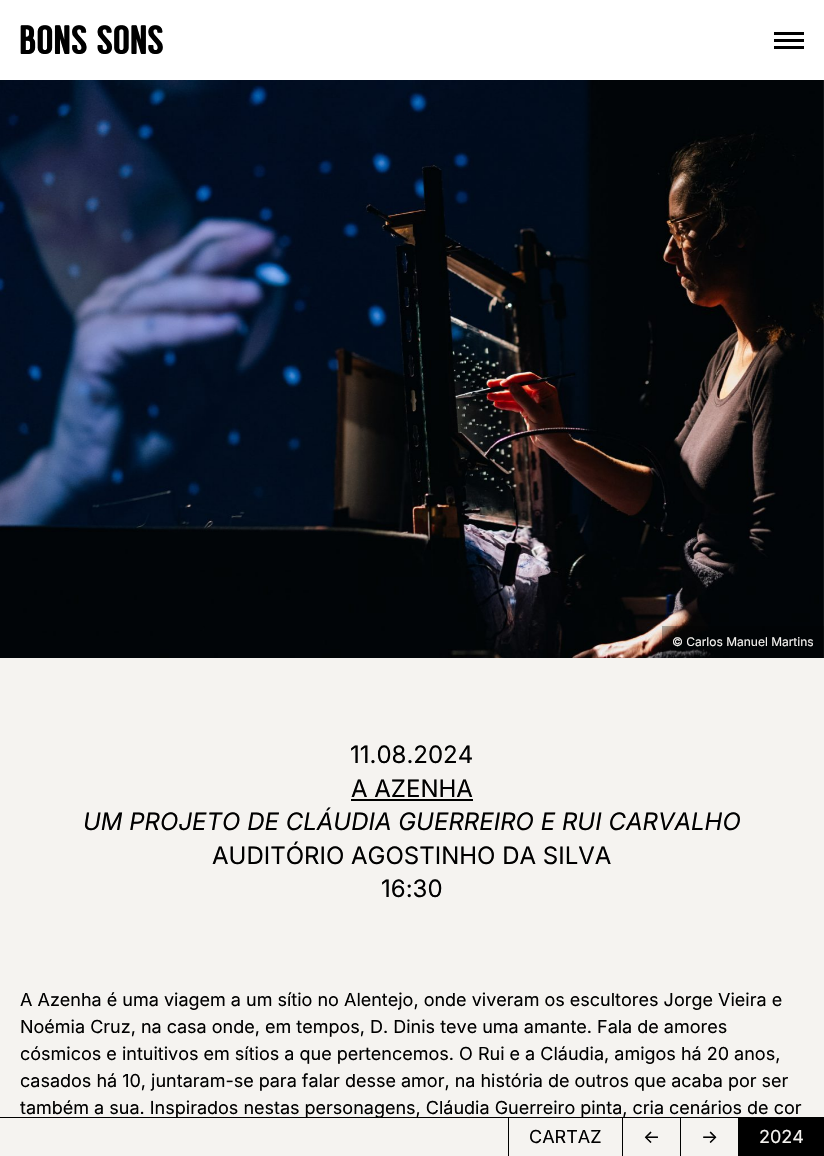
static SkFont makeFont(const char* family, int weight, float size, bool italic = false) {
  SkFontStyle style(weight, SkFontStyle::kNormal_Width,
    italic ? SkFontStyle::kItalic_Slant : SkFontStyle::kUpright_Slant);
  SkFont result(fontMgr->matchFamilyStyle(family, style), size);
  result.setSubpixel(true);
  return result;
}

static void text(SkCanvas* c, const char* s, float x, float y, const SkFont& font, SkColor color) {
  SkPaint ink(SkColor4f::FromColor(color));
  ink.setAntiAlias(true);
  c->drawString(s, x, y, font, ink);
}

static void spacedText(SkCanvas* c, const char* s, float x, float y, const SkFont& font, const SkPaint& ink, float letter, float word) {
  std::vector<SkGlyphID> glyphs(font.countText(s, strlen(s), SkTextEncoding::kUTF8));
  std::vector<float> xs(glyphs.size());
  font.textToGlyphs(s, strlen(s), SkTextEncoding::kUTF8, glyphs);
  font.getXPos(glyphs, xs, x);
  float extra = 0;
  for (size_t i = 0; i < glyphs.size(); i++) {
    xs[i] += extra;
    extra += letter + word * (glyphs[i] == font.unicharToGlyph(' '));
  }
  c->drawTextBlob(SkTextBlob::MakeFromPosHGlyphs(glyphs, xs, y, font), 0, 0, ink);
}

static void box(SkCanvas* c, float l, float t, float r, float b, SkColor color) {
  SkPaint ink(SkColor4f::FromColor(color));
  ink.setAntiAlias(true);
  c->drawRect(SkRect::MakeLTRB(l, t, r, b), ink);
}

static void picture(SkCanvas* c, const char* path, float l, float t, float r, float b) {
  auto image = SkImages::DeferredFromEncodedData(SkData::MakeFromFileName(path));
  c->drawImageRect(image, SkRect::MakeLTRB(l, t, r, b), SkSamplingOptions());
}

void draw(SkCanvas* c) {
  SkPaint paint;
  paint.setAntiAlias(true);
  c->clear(0xfff5f3f0);
  box(c, 0, 0, 824, 80, 0xffffffff);
  SkFont face1 = makeFont("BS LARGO", 400, 36);
  paint.setColor(0xff000000);
  spacedText(c, "BONS SONS", 20, 54, face1, paint, 0.25f, 0);
  box(c, 774, 32, 804, 35, 0xff000000);
  box(c, 774, 39, 804, 42, 0xff000000);
  box(c, 774, 46, 804, 49, 0xff000000);
  picture(c, "img_01.png", 0, 80, 824, 658);
  box(c, 662, 626, 824, 658, 0x4d000000);
  SkFont face2 = makeFont("Inter", 400, 12);
  text(c, "© Carlos Manuel Martins", 672, 646, face2, 0xfff5f3f0);
  SkFont face3 = makeFont("Inter", 400, 24);
  text(c, "11.08.2024", 350, 763, face3, 0xff000000);
  text(c, "A AZENHA", 351, 797, face3, 0xff000000);
  box(c, 351, 799, 473, 801, 0xff000000);
  SkFont face4 = makeFont("Inter", 400, 24, true);
  text(c, "UM PROJETO DE CLÁUDIA GUERREIRO E RUI CARVALHO", 83, 830, face4, 0xff000000);
  text(c, "AUDITÓRIO AGOSTINHO DA SILVA", 212, 864, face3, 0xff000000);
  text(c, "16:30", 381, 897, face3, 0xff000000);
  SkFont face5 = makeFont("Inter", 400, 18);
  text(c, "A Azenha é uma viagem a um sítio no Alentejo, onde viveram os escultores Jorge Vieira e", 20, 1006, face5, 0xff000000);
  text(c, "Noémia Cruz, na casa onde, em tempos, D. Dinis teve uma amante. Fala de amores", 20, 1033, face5, 0xff000000);
  text(c, "cósmicos e intuitivos em sítios a que pertencemos. O Rui e a Cláudia, amigos há 20 anos,", 20, 1060, face5, 0xff000000);
  text(c, "casados há 10, juntaram-se para falar desse amor, na história de outros que acaba por ser", 20, 1087, face5, 0xff000000);
  text(c, "também a sua. Inspirados nestas personagens, Cláudia Guerreiro pinta, cria cenários de cor", 20, 1114, face5, 0xff000000);
  box(c, 0, 1117, 824, 1118, 0xff000000);
  box(c, 508, 1118, 509, 1156, 0xff000000);
  text(c, "CARTAZ", 529, 1143, face5, 0xff000000);
  box(c, 622, 1118, 623, 1156, 0xff000000);
  text(c, "←", 643, 1143, face5, 0xff000000);
  box(c, 680, 1118, 681, 1156, 0xff000000);
  text(c, "→", 701, 1143, face5, 0xff000000);
  box(c, 738, 1118, 824, 1156, 0xff000000);
  text(c, "2024", 759, 1143, face5, 0xfff5f3f0);
}
